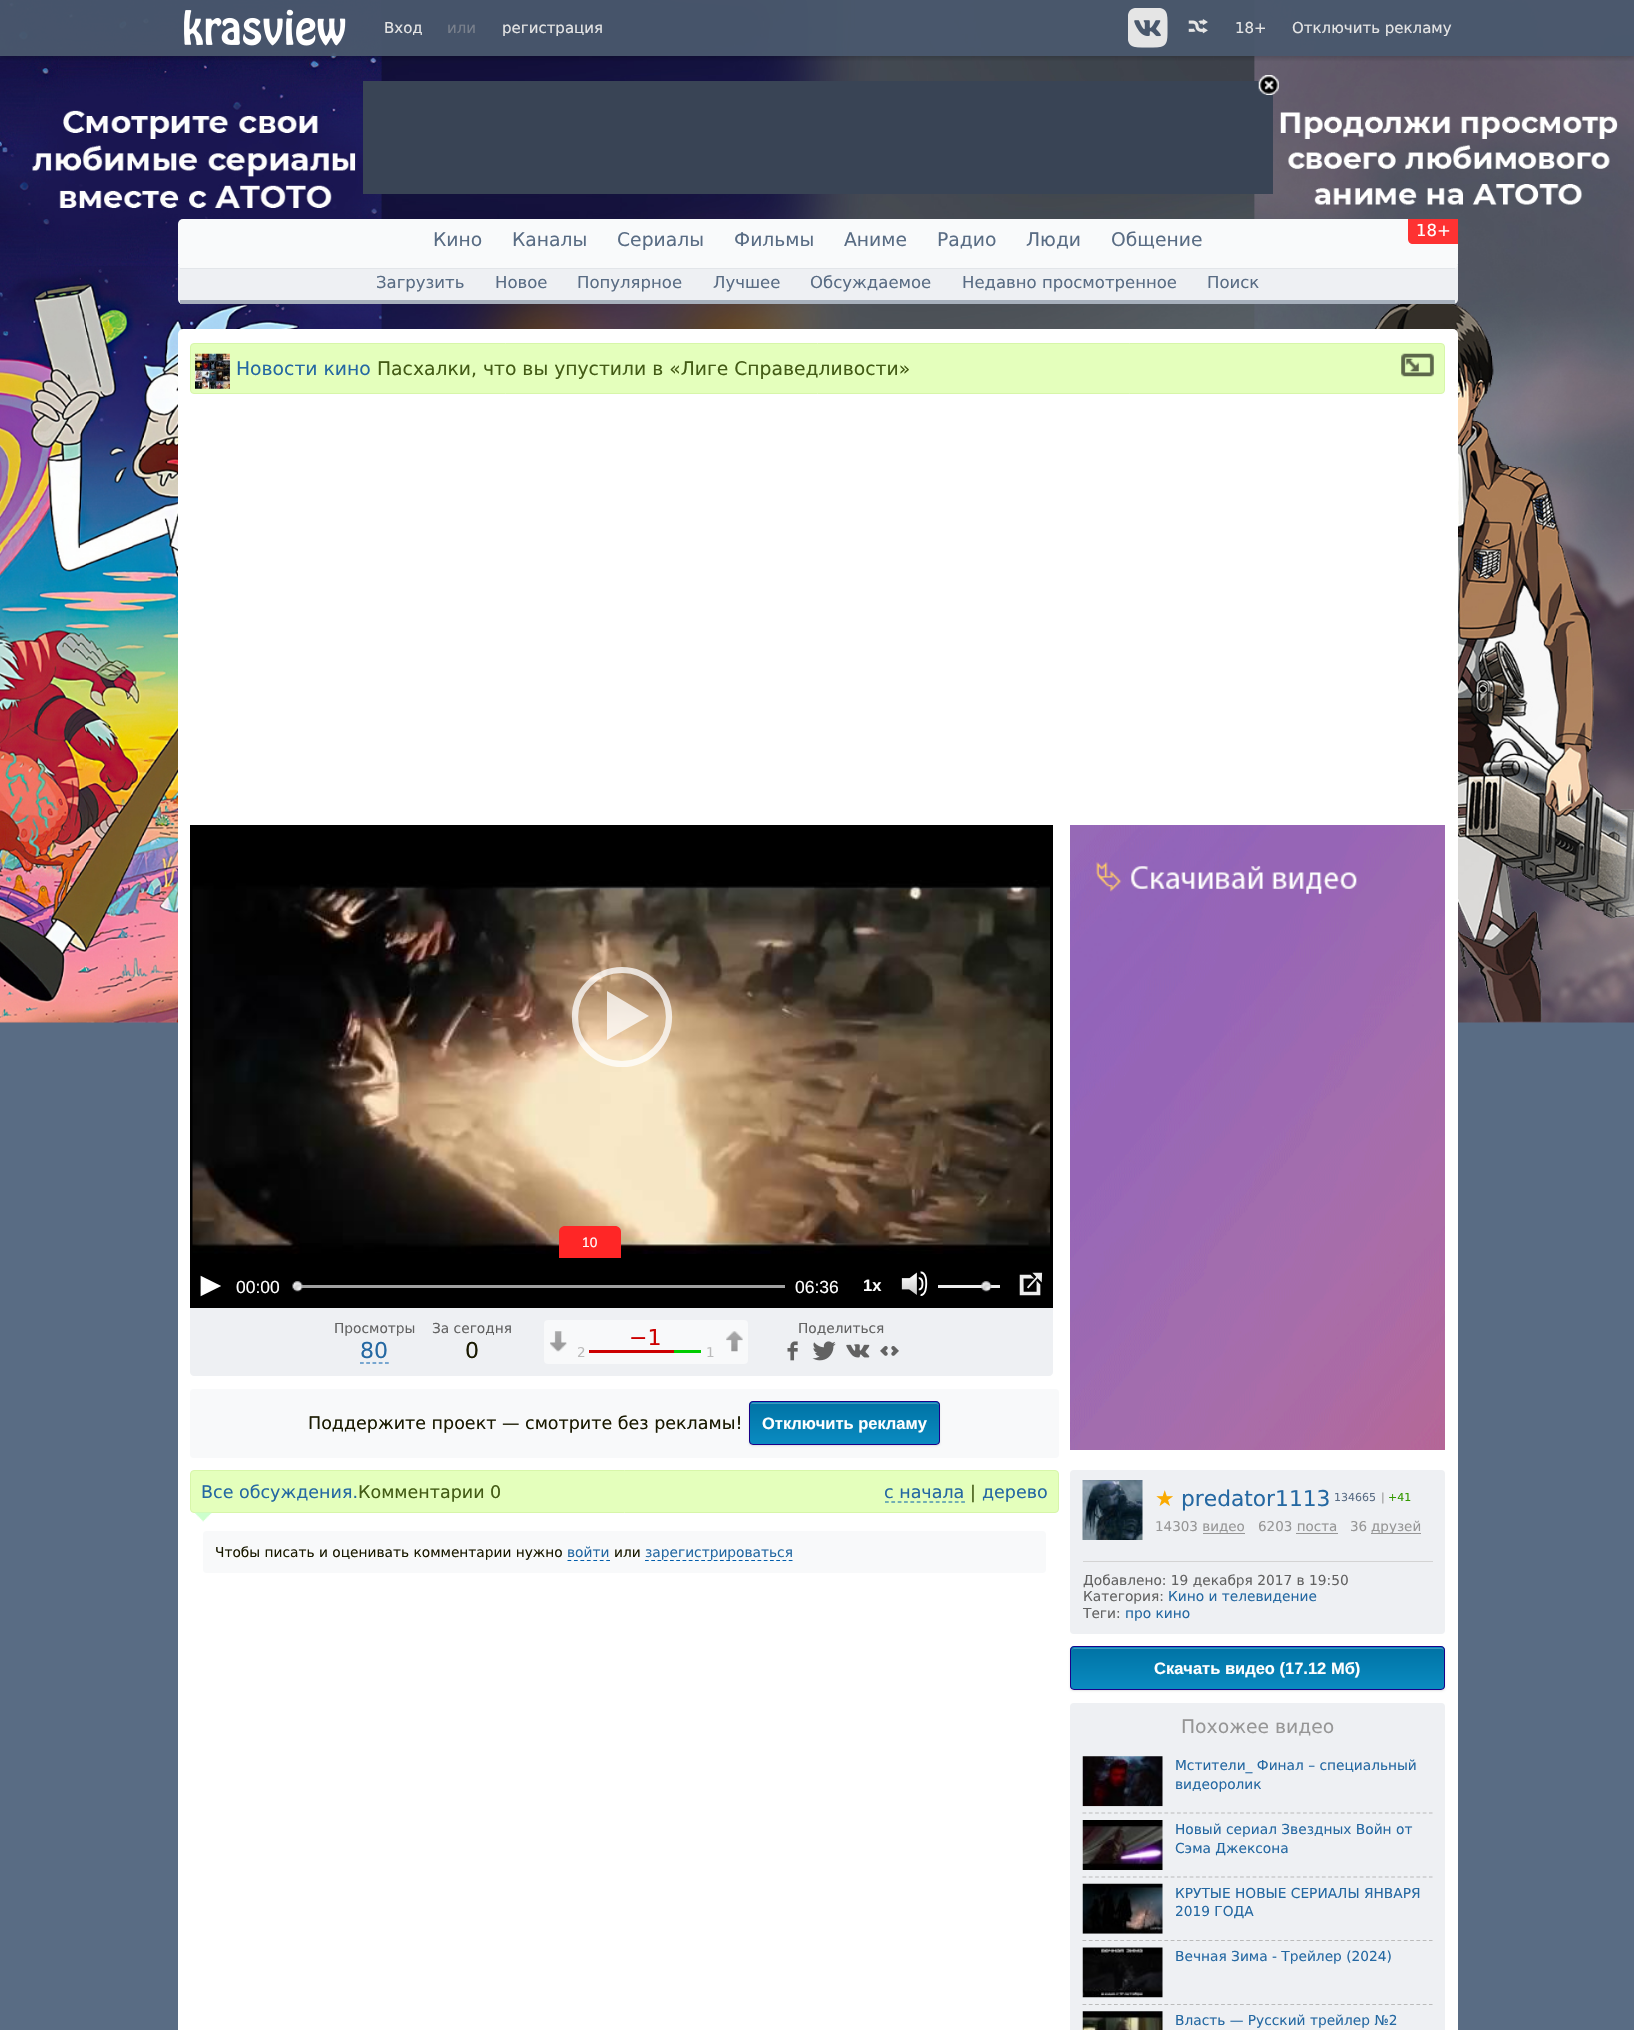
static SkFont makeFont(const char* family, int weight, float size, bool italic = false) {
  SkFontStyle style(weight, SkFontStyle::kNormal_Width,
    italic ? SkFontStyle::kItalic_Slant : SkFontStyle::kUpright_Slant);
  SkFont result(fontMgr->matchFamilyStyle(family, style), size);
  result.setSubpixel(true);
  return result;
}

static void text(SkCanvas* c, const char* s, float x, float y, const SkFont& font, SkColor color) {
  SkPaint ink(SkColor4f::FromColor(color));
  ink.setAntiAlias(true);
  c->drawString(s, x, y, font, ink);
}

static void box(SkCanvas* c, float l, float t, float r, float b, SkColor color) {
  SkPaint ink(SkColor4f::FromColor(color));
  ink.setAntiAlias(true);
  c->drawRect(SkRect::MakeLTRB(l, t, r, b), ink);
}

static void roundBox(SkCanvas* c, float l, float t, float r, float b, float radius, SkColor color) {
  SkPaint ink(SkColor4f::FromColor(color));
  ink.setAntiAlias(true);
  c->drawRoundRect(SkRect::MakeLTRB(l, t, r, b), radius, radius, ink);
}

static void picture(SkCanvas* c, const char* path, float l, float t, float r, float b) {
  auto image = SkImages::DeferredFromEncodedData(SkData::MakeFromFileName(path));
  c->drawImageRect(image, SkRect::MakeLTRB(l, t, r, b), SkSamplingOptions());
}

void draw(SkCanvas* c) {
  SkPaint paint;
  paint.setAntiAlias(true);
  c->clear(0xff596c84);
  picture(c, "img_01.png", 0, 0, 1634, 1023);
  c->save();
  c->clipRect(SkRect::MakeLTRB(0, 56, 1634, 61));
  paint.setColor(0x33000000);
  paint.setMaskFilter(SkMaskFilter::MakeBlur(kNormal_SkBlurStyle, 2.5f));
  c->drawRect(SkRect::MakeLTRB(0, 1, 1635, 58), paint);
  paint.setMaskFilter(nullptr);
  c->restore();
  box(c, 0, 0, 1634, 56, 0xf249576d);
  picture(c, "img_02.png", 184, 9, 346, 46);
  SkFont face1 = makeFont("DejaVu Sans", 400, 15);
  text(c, "Вход", 384, 33, face1, 0xffe5e5e5);
  text(c, "или", 447, 33, face1, 0xff79808c);
  text(c, "регистрация", 502, 33, face1, 0xffe5e5e5);
  picture(c, "img_03.png", 1128, 8, 1168, 48);
  picture(c, "img_04.png", 1188, 19, 1208, 34);
  text(c, "18+", 1235, 33, face1, 0xffe5e5e5);
  text(c, "Отключить рекламу", 1292, 33, face1, 0xffe5e5e5);
  box(c, 363, 81, 1273, 194, 0xff394455);
  picture(c, "img_05.png", 1258, 75, 1279, 95);
  paint.setColor(0xffeef0f3);
  c->drawPath(SkPathBuilder().moveTo(178, 265).lineTo(1458, 265).lineTo(1458, 299).cubicTo(1458, 302, 1456, 304, 1453, 304).lineTo(183, 304).cubicTo(180, 304, 178, 302, 178, 299).close().detach(), paint);
  roundBox(c, 178, 219, 1458, 269, 5, 0xfff9fafb);
  box(c, 180, 268, 1455, 269, 0xffe2e5e9);
  SkFont face2 = makeFont("DejaVu Sans", 400, 18.75f);
  text(c, "Кино", 433, 246, face2, 0xff596c84);
  text(c, "Каналы", 512, 246, face2, 0xff596c84);
  text(c, "Сериалы", 617, 246, face2, 0xff596c84);
  text(c, "Фильмы", 734, 246, face2, 0xff596c84);
  text(c, "Аниме", 844, 246, face2, 0xff596c84);
  text(c, "Радио", 937, 246, face2, 0xff596c84);
  text(c, "Люди", 1026, 246, face2, 0xff596c84);
  text(c, "Общение", 1111, 246, face2, 0xff596c84);
  paint.setColor(0xfffe3232);
  c->drawPath(SkPathBuilder().moveTo(1408, 219).lineTo(1458, 219).lineTo(1458, 244).lineTo(1413, 244).cubicTo(1410, 244, 1408, 242, 1408, 239).close().detach(), paint);
  SkFont face3 = makeFont("DejaVu Sans", 400, 16.5f);
  text(c, "18+", 1416, 236, face3, 0xffffffff);
  box(c, 180, 300, 1455, 304, 0xffa7b0bc);
  text(c, "Загрузить", 376, 288, face3, 0xff596c84);
  text(c, "Новое", 495, 288, face3, 0xff596c84);
  text(c, "Популярное", 577, 288, face3, 0xff596c84);
  text(c, "Лучшее", 713, 288, face3, 0xff596c84);
  text(c, "Обсуждаемое", 810, 288, face3, 0xff596c84);
  text(c, "Недавно просмотренное", 962, 288, face3, 0xff596c84);
  text(c, "Поиск", 1207, 288, face3, 0xff596c84);
  roundBox(c, 178, 329, 1458, 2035, 5, 0xffffffff);
  paint.setColor(0xffe4ffbc);
  c->drawRoundRect(SkRect::MakeLTRB(190.5f, 343.5f, 1444.5f, 393.5f), 3.5f, 3.5f, paint);
  paint.setStyle(SkPaint::kStroke_Style);
  paint.setStrokeWidth(1);
  paint.setColor(0xffd7f6a9);
  c->drawRoundRect(SkRect::MakeLTRB(190.5f, 343.5f, 1444.5f, 393.5f), 3.5f, 3.5f, paint);
  picture(c, "img_06.png", 195, 353, 230, 389);
  text(c, "Новости кино", 236, 375, face2, 0xff2468a2);
  text(c, "Пасхалки, что вы упустили в «Лиге Справедливости»", 377, 375, face2, 0xff435b15);
  picture(c, "img_07.png", 1401, 353, 1434, 377);
  box(c, 190, 825, 1053, 1308, 0xff000000);
  picture(c, "img_08.png", 192, 880, 1050, 1254);
  paint.setStyle(SkPaint::kFill_Style);
  paint.setColor(0xffff2626);
  c->drawPath(SkPathBuilder().moveTo(565, 1226).lineTo(615, 1226).cubicTo(618.5f, 1226, 621, 1228.5f, 621, 1232).lineTo(621, 1258).lineTo(559, 1258).lineTo(559, 1232).cubicTo(559, 1228.5f, 561.5f, 1226, 565, 1226).close().detach(), paint);
  SkFont face4 = makeFont("Liberation Sans", 400, 13.75f);
  text(c, "10", 582, 1247, face4, 0xffffffff);
  paint.setColor(0xbfffffff);
  c->drawPath(SkPathBuilder().moveTo(649, 1016).lineTo(607, 1040).lineTo(607, 991).close().detach(), paint);
  paint.setStyle(SkPaint::kStroke_Style);
  paint.setStrokeWidth(6.2f);
  c->drawPath(SkPathBuilder().moveTo(575, 1017).cubicTo(575, 991, 596, 970, 622, 970).cubicTo(648, 970, 669, 991, 669, 1017).cubicTo(669, 1043, 648, 1064, 622, 1064).cubicTo(596, 1064, 575, 1043, 575, 1017).close().detach(), paint);
  picture(c, "img_09.png", 200, 1275, 221, 1297);
  SkFont face5 = makeFont("Liberation Sans", 400, 17.5f);
  text(c, "00:00", 236, 1293, face5, 0xffffffff);
  box(c, 293, 1285, 785, 1288, 0xffa0a0a0);
  picture(c, "img_10.png", 292, 1281, 303, 1292);
  text(c, "06:36", 795, 1293, face5, 0xffffffff);
  SkFont face6 = makeFont("Liberation Sans", 700, 16.5f);
  text(c, "1x", 863, 1291, face6, 0xffffffff);
  picture(c, "img_11.png", 901, 1271, 928, 1296);
  box(c, 938, 1285, 1000, 1288, 0xffececec);
  picture(c, "img_12.png", 981, 1281, 992, 1292);
  picture(c, "img_13.png", 1019, 1272, 1043, 1296);
  paint.setStyle(SkPaint::kFill_Style);
  paint.setColor(0xffeef0f3);
  c->drawPath(SkPathBuilder().moveTo(190, 1308).lineTo(1053, 1308).lineTo(1053, 1372).cubicTo(1053, 1374, 1051, 1376, 1049, 1376).lineTo(194, 1376).cubicTo(192, 1376, 190, 1374, 190, 1372).close().detach(), paint);
  SkFont face7 = makeFont("DejaVu Sans", 400, 13.75f);
  text(c, "Просмотры", 334, 1333, face7, 0xff626262);
  SkFont face8 = makeFont("DejaVu Sans", 400, 22);
  text(c, "80", 360, 1358, face8, 0xff2468a2);
  paint.setStyle(SkPaint::kStroke_Style);
  paint.setStrokeWidth(1.2f);
  paint.setColor(0xff005dad);
  paint.setPathEffect(SkDashPathEffect::Make({{3.75f, 2.5f}}, 0));
  c->drawPath(SkPathBuilder().moveTo(360, 1363).lineTo(389, 1363).detach(), paint);
  paint.setPathEffect(nullptr);
  text(c, "За сегодня", 432, 1333, face7, 0xff626262);
  text(c, "0", 465, 1358, face8, 0xff191900);
  roundBox(c, 544, 1320, 748, 1364, 4, 0xfff8f9fa);
  picture(c, "img_14.png", 550, 1331, 567, 1352);
  SkFont face9 = makeFont("DejaVu Sans", 400, 13.5f);
  text(c, "2", 577, 1357, face9, 0xffbbbbbb);
  text(c, "−1", 629, 1345, face8, 0xffcc0000);
  text(c, "1", 706, 1357, face9, 0xffbbbbbb);
  picture(c, "img_15.png", 726, 1331, 743, 1352);
  box(c, 589, 1350, 674, 1353, 0xffcc0000);
  box(c, 674, 1350, 701, 1353, 0xff00cc00);
  text(c, "Поделиться", 798, 1333, face7, 0xff626262);
  picture(c, "img_16.png", 787, 1341, 798, 1361);
  picture(c, "img_17.png", 812, 1341, 836, 1361);
  picture(c, "img_18.png", 846, 1344, 870, 1358);
  picture(c, "img_19.png", 880, 1346, 899, 1356);
  picture(c, "img_20.png", 1070, 825, 1445, 1450);
  roundBox(c, 1070, 1470, 1445, 1634, 4, 0xffeef0f3);
  picture(c, "img_21.png", 1082, 1480, 1143, 1540);
  SkFont face10 = makeFont("DejaVu Sans", 400, 21.75f);
  text(c, "★", 1155, 1506, face10, 0xfffaaa00);
  text(c, "predator1113", 1181, 1506, face10, 0xff2468a2);
  SkFont face11 = makeFont("DejaVu Sans", 400, 11);
  text(c, "134665", 1334, 1501, face11, 0xff596c84);
  text(c, "|", 1381, 1501, face11, 0xff969696);
  text(c, "+41", 1388, 1501, face11, 0xff339900);
  text(c, "14303 видео", 1155, 1531, face9, 0xff969696);
  box(c, 1203, 1533, 1245, 1534, 0xff969696);
  text(c, "6203 поста", 1258, 1531, face9, 0xff969696);
  box(c, 1296, 1533, 1338, 1534, 0xff969696);
  text(c, "36", 1350, 1531, face9, 0xff969696);
  box(c, 1371, 1533, 1421, 1534, 0xff969696);
  text(c, "друзей", 1371, 1531, face9, 0xff969696);
  box(c, 1083, 1561, 1433, 1562, 0xffd3d3d3);
  text(c, "Добавлено: 19 декабря 2017 в 19:50", 1083, 1585, face7, 0xff626262);
  text(c, "Категория:", 1083, 1601, face7, 0xff626262);
  text(c, "Кино и телевидение", 1168, 1601, face7, 0xff2468a2);
  text(c, "Теги:", 1083, 1618, face7, 0xff626262);
  text(c, "про кино", 1125, 1618, face7, 0xff2468a2);
  paint.setStyle(SkPaint::kFill_Style);
  paint.setColor(0x1a000000);
  paint.setMaskFilter(SkMaskFilter::MakeBlur(kNormal_SkBlurStyle, 1));
  c->drawRoundRect(SkRect::MakeLTRB(1070, 1648, 1445, 1691), 4, 4, paint);
  paint.setMaskFilter(nullptr);
  c->save();
  c->clipPath(SkPathBuilder().moveTo(1074, 1646).lineTo(1441, 1646).cubicTo(1443, 1646, 1445, 1648, 1445, 1650).lineTo(1445, 1686).cubicTo(1445, 1688, 1443, 1690, 1441, 1690).lineTo(1074, 1690).cubicTo(1072, 1690, 1070, 1688, 1070, 1686).lineTo(1070, 1650).cubicTo(1070, 1648, 1072, 1646, 1074, 1646).close().detach(), true);
  {
    const SkColor colors[] = {0xff0a8bc1, 0xff0073a5};
    const float stops[] = {0, 1};
    const SkPoint ends[] = {{1258, 1648}, {1258, 1606}};
    paint.setShader(SkGradientShader::MakeLinear(ends, colors, stops, 2, SkTileMode::kClamp));
    paint.setAlpha(255);
  }
  c->drawRect(SkRect::MakeLTRB(1070, 1646, 1445, 1648), paint);
  {
    const SkColor colors[] = {0xff0a8bc1, 0xff0073a5};
    const float stops[] = {0, 1};
    const SkPoint ends[] = {{1258, 1689}, {1258, 1648}};
    paint.setShader(SkGradientShader::MakeLinear(ends, colors, stops, 2, SkTileMode::kClamp));
    paint.setAlpha(255);
  }
  c->drawRect(SkRect::MakeLTRB(1070, 1648, 1445, 1689), paint);
  c->restore();
  paint.setShader(nullptr);
  paint.setColor(0xff4096bc);
  c->drawPath(SkPathBuilder().moveTo(1074, 1649).lineTo(1441, 1649).cubicTo(1443, 1649, 1444, 1650, 1444, 1651).cubicTo(1444, 1649, 1443, 1648, 1442, 1648).lineTo(1074, 1648).lineTo(1072, 1649).lineTo(1071, 1651).cubicTo(1071, 1650, 1072, 1649, 1074, 1649).close().detach(), paint);
  paint.setStyle(SkPaint::kStroke_Style);
  paint.setStrokeWidth(1);
  paint.setColor(0xff1b0088);
  c->drawRoundRect(SkRect::MakeLTRB(1070.5f, 1646.5f, 1444.5f, 1689.5f), 3.5f, 3.5f, paint);
  text(c, "Скачать видео (17.12 Мб)", 1154, 1674, face6, 0xffffffff);
  roundBox(c, 1070, 1703, 1445, 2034, 4, 0xffeef0f3);
  text(c, "Похожее видео", 1181, 1733, face2, 0xff969696);
  picture(c, "img_22.png", 1082, 1756, 1163, 1807);
  text(c, "Мстители_ Финал – специальный", 1175, 1770, face7, 0xff2468a2);
  text(c, "видеоролик", 1175, 1789, face7, 0xff2468a2);
  paint.setStrokeWidth(1.2f);
  paint.setColor(0xffbbbbbb);
  paint.setPathEffect(SkDashPathEffect::Make({{3.75f, 2.55f}}, 0));
  c->drawPath(SkPathBuilder().moveTo(1082.5f, 1813).lineTo(1432.5f, 1813).detach(), paint);
  paint.setPathEffect(nullptr);
  picture(c, "img_23.png", 1082, 1820, 1163, 1870);
  text(c, "Новый сериал Звездных Войн от", 1175, 1834, face7, 0xff2468a2);
  text(c, "Сэма Джексона", 1175, 1853, face7, 0xff2468a2);
  paint.setPathEffect(SkDashPathEffect::Make({{3.75f, 2.55f}}, 0));
  c->drawPath(SkPathBuilder().moveTo(1082.5f, 1877).lineTo(1432.5f, 1877).detach(), paint);
  paint.setPathEffect(nullptr);
  picture(c, "img_24.png", 1082, 1883, 1163, 1934);
  text(c, "КРУТЫЕ НОВЫЕ СЕРИАЛЫ ЯНВАРЯ", 1175, 1898, face7, 0xff2468a2);
  text(c, "2019 ГОДА", 1175, 1916, face7, 0xff2468a2);
  paint.setPathEffect(SkDashPathEffect::Make({{3.75f, 2.55f}}, 0));
  c->drawPath(SkPathBuilder().moveTo(1082.5f, 1940.5f).lineTo(1432.5f, 1940.5f).detach(), paint);
  paint.setPathEffect(nullptr);
  picture(c, "img_25.png", 1082, 1947, 1163, 1998);
  text(c, "Вечная Зима - Трейлер (2024)", 1175, 1961, face7, 0xff2468a2);
  paint.setPathEffect(SkDashPathEffect::Make({{3.75f, 2.55f}}, 0));
  c->drawPath(SkPathBuilder().moveTo(1082.5f, 2004.5f).lineTo(1432.5f, 2004.5f).detach(), paint);
  paint.setPathEffect(nullptr);
  picture(c, "img_26.png", 1082, 2011, 1163, 2030);
  text(c, "Власть — Русский трейлер №2", 1175, 2025, face7, 0xff2468a2);
  roundBox(c, 190, 1389, 1059, 1458, 4, 0xfff8f9fa);
  SkFont face12 = makeFont("DejaVu Sans", 400, 17.5f);
  text(c, "Поддержите проект — смотрите без рекламы!", 308, 1429, face12, 0xff191900);
  paint.setStyle(SkPaint::kFill_Style);
  paint.setColor(0x1a000000);
  paint.setMaskFilter(SkMaskFilter::MakeBlur(kNormal_SkBlurStyle, 1));
  c->drawRoundRect(SkRect::MakeLTRB(749, 1403, 940, 1446), 4, 4, paint);
  paint.setMaskFilter(nullptr);
  c->save();
  c->clipPath(SkPathBuilder().moveTo(753, 1401).lineTo(936, 1401).cubicTo(938, 1401, 940, 1403, 940, 1405).lineTo(940, 1441).cubicTo(940, 1443, 938, 1445, 936, 1445).lineTo(753, 1445).cubicTo(751, 1445, 749, 1443, 749, 1441).lineTo(749, 1405).cubicTo(749, 1403, 751, 1401, 753, 1401).close().detach(), true);
  {
    const SkColor colors[] = {0xff0a8bc1, 0xff0073a5};
    const float stops[] = {0, 1};
    const SkPoint ends[] = {{844, 1403}, {844, 1361}};
    paint.setShader(SkGradientShader::MakeLinear(ends, colors, stops, 2, SkTileMode::kClamp));
    paint.setAlpha(255);
  }
  c->drawRect(SkRect::MakeLTRB(749, 1401, 940, 1403), paint);
  {
    const SkColor colors[] = {0xff0a8bc1, 0xff0073a5};
    const float stops[] = {0, 1};
    const SkPoint ends[] = {{844, 1444}, {844, 1403}};
    paint.setShader(SkGradientShader::MakeLinear(ends, colors, stops, 2, SkTileMode::kClamp));
    paint.setAlpha(255);
  }
  c->drawRect(SkRect::MakeLTRB(749, 1403, 940, 1444), paint);
  c->restore();
  paint.setShader(nullptr);
  paint.setColor(0xff4096bc);
  c->drawPath(SkPathBuilder().moveTo(752, 1404).lineTo(936, 1404).cubicTo(938, 1404, 939, 1405, 939, 1406).cubicTo(939, 1404, 938, 1403, 936, 1403).lineTo(752, 1403).lineTo(751, 1404).lineTo(750, 1406).cubicTo(750, 1405, 751, 1404, 752, 1404).close().detach(), paint);
  paint.setStyle(SkPaint::kStroke_Style);
  paint.setStrokeWidth(1);
  paint.setColor(0xff1b0088);
  c->drawRoundRect(SkRect::MakeLTRB(749.5f, 1401.5f, 939.5f, 1444.5f), 3.5f, 3.5f, paint);
  text(c, "Отключить рекламу", 762, 1429, face6, 0xffffffff);
  paint.setStyle(SkPaint::kFill_Style);
  paint.setColor(0xffe4ffbc);
  c->drawRoundRect(SkRect::MakeLTRB(190.5f, 1470.5f, 1058.5f, 1512.5f), 3.5f, 3.5f, paint);
  paint.setStyle(SkPaint::kStroke_Style);
  paint.setColor(0xffd7f6a9);
  c->drawRoundRect(SkRect::MakeLTRB(190.5f, 1470.5f, 1058.5f, 1512.5f), 3.5f, 3.5f, paint);
  text(c, "Все обсуждения.", 201, 1498, face12, 0xff2468a2);
  text(c, "Комментарии 0", 358, 1498, face12, 0xff435b15);
  text(c, "с начала", 884, 1498, face12, 0xff2468a2);
  paint.setStrokeWidth(1.2f);
  paint.setColor(0xff005dad);
  paint.setPathEffect(SkDashPathEffect::Make({{3.75f, 2.6f}}, 0));
  c->drawPath(SkPathBuilder().moveTo(885, 1502).lineTo(965, 1502).detach(), paint);
  paint.setPathEffect(nullptr);
  text(c, "|", 970, 1498, face12, 0xff435b15);
  text(c, "дерево", 982, 1498, face12, 0xff2468a2);
  picture(c, "img_27.png", 195, 1512, 212, 1522);
  roundBox(c, 203, 1531, 1046, 1573, 4, 0xfff8f9fa);
  text(c, "Чтобы писать и оценивать комментарии нужно", 215, 1557, face7, 0xff191900);
  text(c, "войти", 567, 1557, face7, 0xff2468a2);
  paint.setPathEffect(SkDashPathEffect::Make({{3.75f, 2.71f}}, 0));
  c->drawPath(SkPathBuilder().moveTo(567.5f, 1560.5f).lineTo(610, 1560.5f).detach(), paint);
  paint.setPathEffect(nullptr);
  text(c, "или", 614, 1557, face7, 0xff191900);
  paint.setPathEffect(SkDashPathEffect::Make({{3.75f, 2.5f}}, 0));
  c->drawPath(SkPathBuilder().moveTo(645, 1560.5f).lineTo(792.5f, 1560.5f).detach(), paint);
  paint.setPathEffect(nullptr);
  text(c, "зарегистрироваться", 645, 1557, face7, 0xff2468a2);
}
